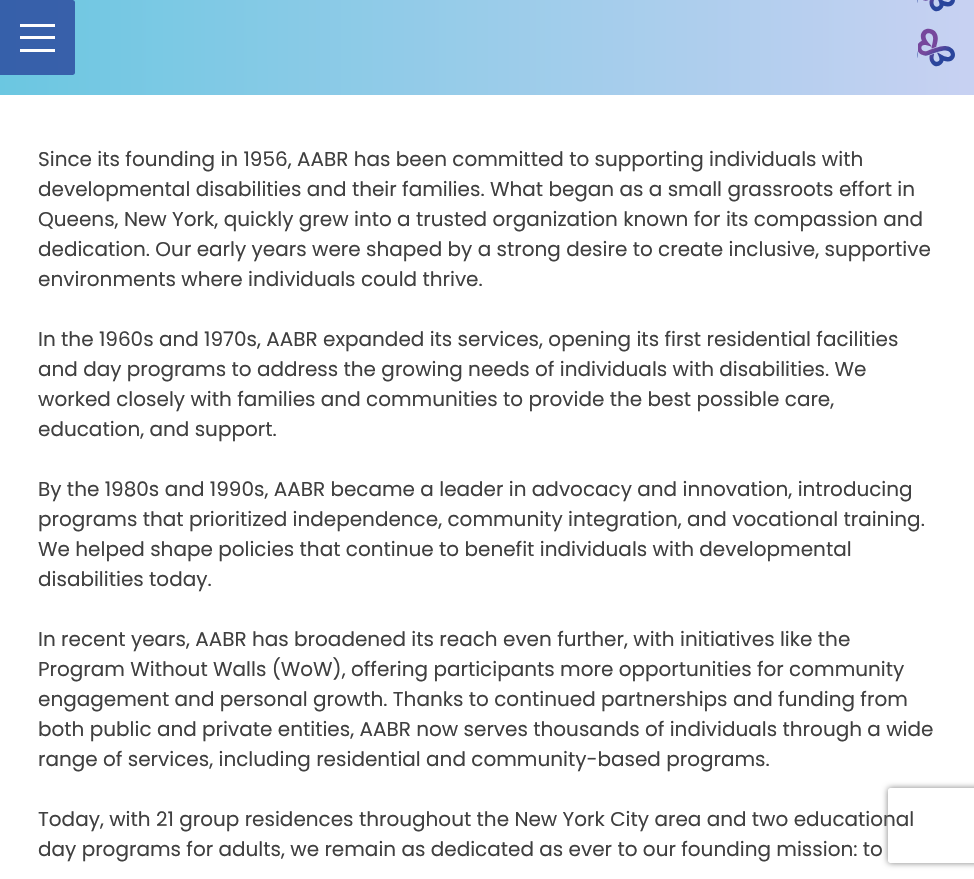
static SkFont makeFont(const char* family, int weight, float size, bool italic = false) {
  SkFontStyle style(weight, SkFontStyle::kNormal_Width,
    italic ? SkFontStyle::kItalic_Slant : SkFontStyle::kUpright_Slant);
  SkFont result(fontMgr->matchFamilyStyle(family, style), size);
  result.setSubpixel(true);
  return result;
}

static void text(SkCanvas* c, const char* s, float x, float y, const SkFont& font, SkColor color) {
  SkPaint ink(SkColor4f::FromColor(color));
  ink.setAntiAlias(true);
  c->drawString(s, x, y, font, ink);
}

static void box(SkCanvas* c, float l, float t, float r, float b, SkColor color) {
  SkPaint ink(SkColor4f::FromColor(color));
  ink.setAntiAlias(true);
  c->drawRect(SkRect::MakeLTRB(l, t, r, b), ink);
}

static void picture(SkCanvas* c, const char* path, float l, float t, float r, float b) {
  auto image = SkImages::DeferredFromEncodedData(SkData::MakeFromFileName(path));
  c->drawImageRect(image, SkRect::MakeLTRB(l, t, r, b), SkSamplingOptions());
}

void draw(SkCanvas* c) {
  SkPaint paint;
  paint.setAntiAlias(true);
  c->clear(0xffffffff);
  {
    const SkColor colors[] = {0xff6bc7e1, 0xffc8d1f2};
    const float stops[] = {0, 1};
    const SkPoint ends[] = {{0, -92}, {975, -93}};
    paint.setShader(SkGradientShader::MakeLinear(ends, colors, stops, 2, SkTileMode::kClamp));
    paint.setAlpha(255);
  }
  c->drawRect(SkRect::MakeLTRB(0, 0, 974, 95), paint);
  paint.setShader(nullptr);
  paint.setColor(0xbf243d97);
  c->drawPath(SkPathBuilder().moveTo(0, 0).lineTo(72.5f, 0).cubicTo(74, 0, 75, 1, 75, 2.5f).lineTo(75, 72.5f).cubicTo(75, 74, 74, 75, 72.5f, 75).lineTo(0, 75).close().detach(), paint);
  box(c, 20, 36, 55, 39, 0xfffefefe);
  box(c, 20, 24, 55, 27, 0xfffefefe);
  box(c, 20, 49, 55, 52, 0xfffefefe);
  picture(c, "img_01.png", 917, 0, 955, 67);
  SkFont face1 = makeFont("Poppins", 400, 20);
  text(c, "Since its founding in 1956, AABR has been committed to supporting individuals with", 38, 166, face1, 0xff404040);
  text(c, "developmental disabilities and their families. What began as a small grassroots effort in", 38, 196, face1, 0xff404040);
  text(c, "Queens, New York, quickly grew into a trusted organization known for its compassion and", 38, 226, face1, 0xff404040);
  text(c, "dedication. Our early years were shaped by a strong desire to create inclusive, supportive", 38, 256, face1, 0xff404040);
  text(c, "environments where individuals could thrive.", 38, 286, face1, 0xff404040);
  text(c, "In the 1960s and 1970s, AABR expanded its services, opening its first residential facilities", 38, 346, face1, 0xff404040);
  text(c, "and day programs to address the growing needs of individuals with disabilities. We", 38, 376, face1, 0xff404040);
  text(c, "worked closely with families and communities to provide the best possible care,", 38, 406, face1, 0xff404040);
  text(c, "education, and support.", 38, 436, face1, 0xff404040);
  text(c, "By the 1980s and 1990s, AABR became a leader in advocacy and innovation, introducing", 38, 496, face1, 0xff404040);
  text(c, "programs that prioritized independence, community integration, and vocational training.", 38, 526, face1, 0xff404040);
  text(c, "We helped shape policies that continue to benefit individuals with developmental", 38, 556, face1, 0xff404040);
  text(c, "disabilities today.", 38, 586, face1, 0xff404040);
  text(c, "In recent years, AABR has broadened its reach even further, with initiatives like the", 38, 646, face1, 0xff404040);
  text(c, "Program Without Walls (WoW), offering participants more opportunities for community", 38, 676, face1, 0xff404040);
  text(c, "engagement and personal growth. Thanks to continued partnerships and funding from", 38, 706, face1, 0xff404040);
  text(c, "both public and private entities, AABR now serves thousands of individuals through a wide", 38, 736, face1, 0xff404040);
  text(c, "range of services, including residential and community-based programs.", 38, 766, face1, 0xff404040);
  text(c, "Today, with 21 group residences throughout the New York City area and two educational", 38, 826, face1, 0xff404040);
  text(c, "day programs for adults, we remain as dedicated as ever to our founding mission: to", 38, 856, face1, 0xff404040);
  c->save();
  c->clipPath(SkPathBuilder(SkPathFillType::kEvenOdd).moveTo(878, 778).lineTo(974, 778).lineTo(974, 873).lineTo(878, 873).close().moveTo(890.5f, 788).lineTo(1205.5f, 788).cubicTo(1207, 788, 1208, 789, 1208, 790.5f).lineTo(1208, 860.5f).cubicTo(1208, 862, 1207, 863, 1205.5f, 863).lineTo(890.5f, 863).cubicTo(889, 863, 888, 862, 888, 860.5f).lineTo(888, 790.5f).cubicTo(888, 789, 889, 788, 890.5f, 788).close().detach(), true);
  paint.setColor(0xff808080);
  paint.setMaskFilter(SkMaskFilter::MakeBlur(kNormal_SkBlurStyle, 3));
  c->drawRoundRect(SkRect::MakeLTRB(888, 788, 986, 863), 2.5f, 2.5f, paint);
  paint.setMaskFilter(nullptr);
  c->restore();
}
